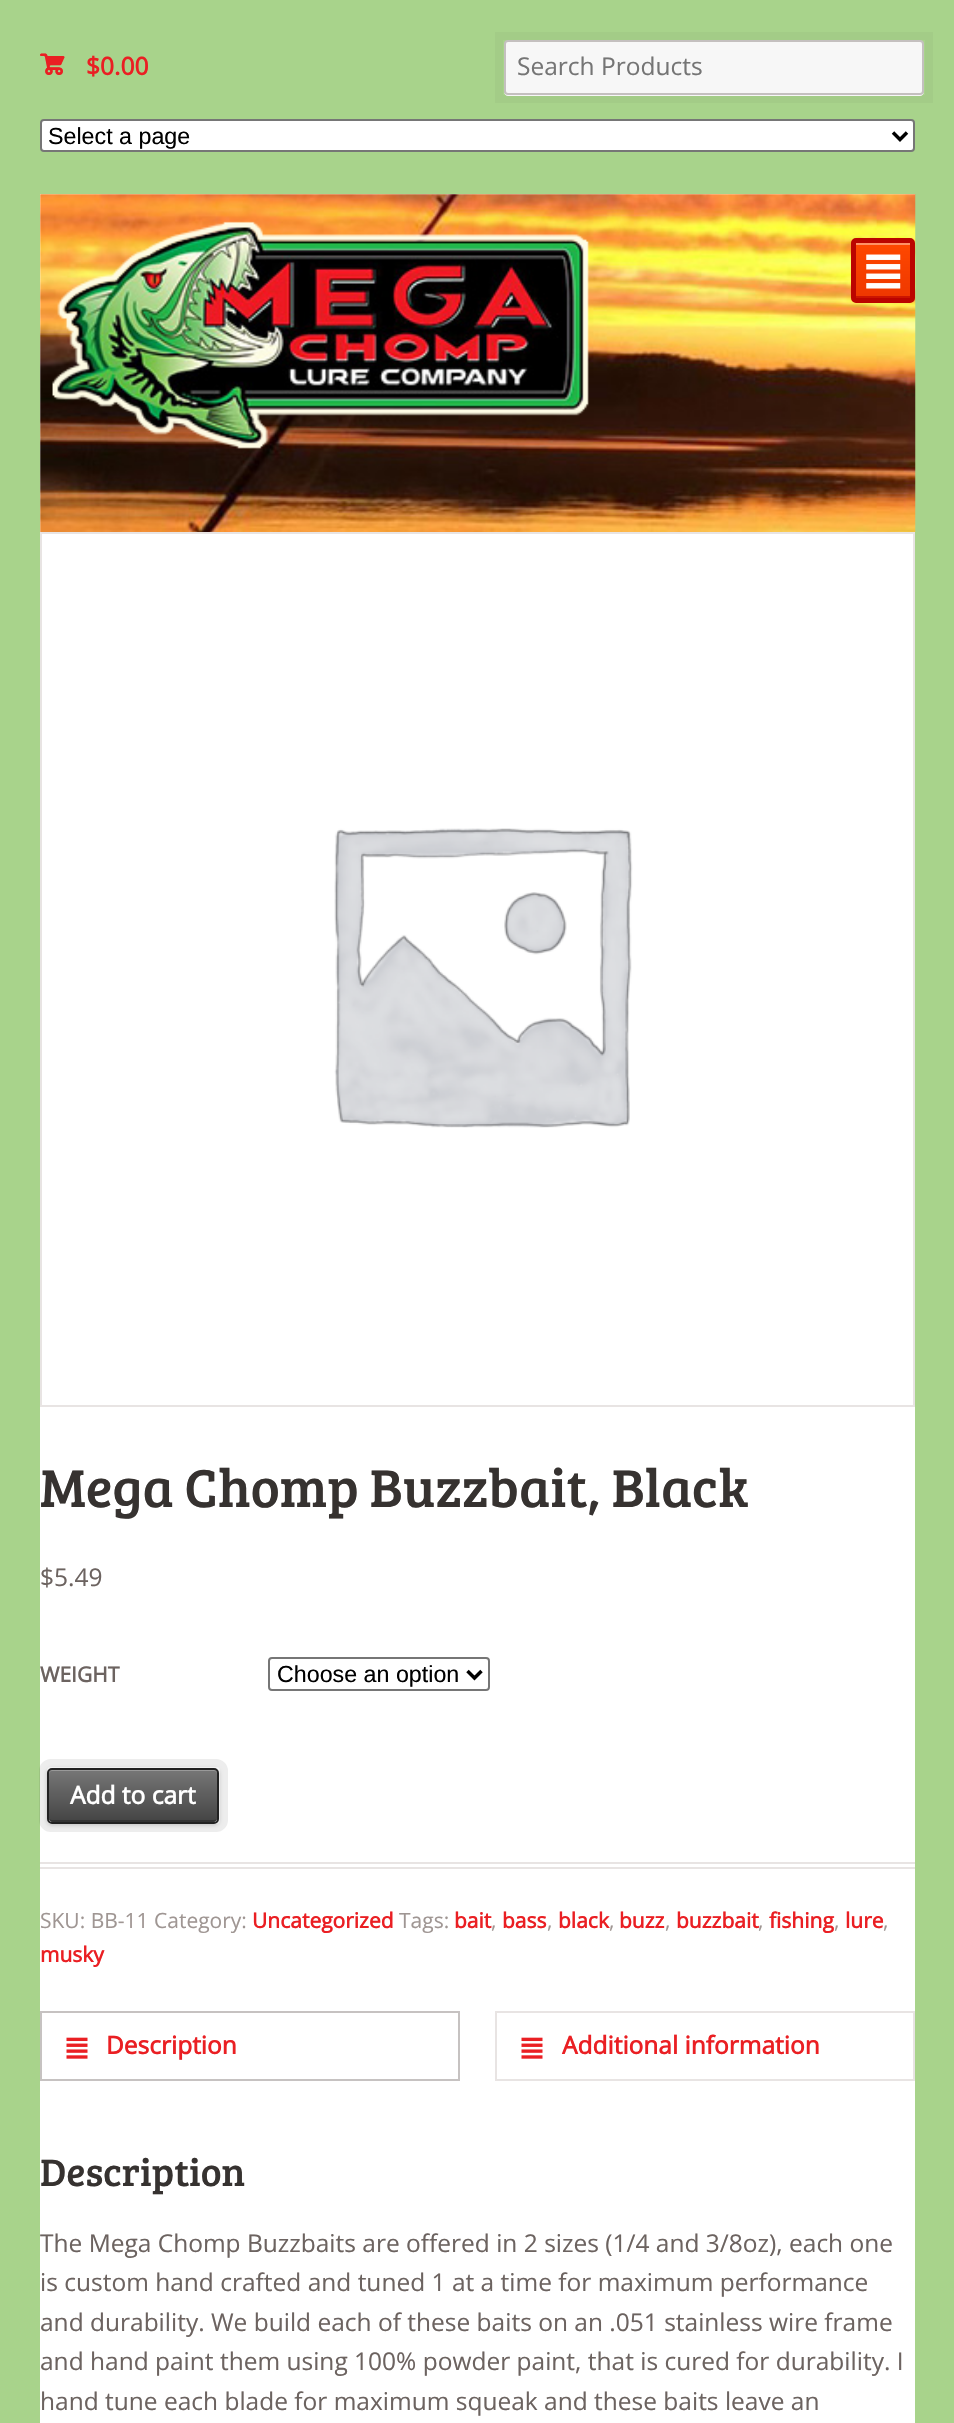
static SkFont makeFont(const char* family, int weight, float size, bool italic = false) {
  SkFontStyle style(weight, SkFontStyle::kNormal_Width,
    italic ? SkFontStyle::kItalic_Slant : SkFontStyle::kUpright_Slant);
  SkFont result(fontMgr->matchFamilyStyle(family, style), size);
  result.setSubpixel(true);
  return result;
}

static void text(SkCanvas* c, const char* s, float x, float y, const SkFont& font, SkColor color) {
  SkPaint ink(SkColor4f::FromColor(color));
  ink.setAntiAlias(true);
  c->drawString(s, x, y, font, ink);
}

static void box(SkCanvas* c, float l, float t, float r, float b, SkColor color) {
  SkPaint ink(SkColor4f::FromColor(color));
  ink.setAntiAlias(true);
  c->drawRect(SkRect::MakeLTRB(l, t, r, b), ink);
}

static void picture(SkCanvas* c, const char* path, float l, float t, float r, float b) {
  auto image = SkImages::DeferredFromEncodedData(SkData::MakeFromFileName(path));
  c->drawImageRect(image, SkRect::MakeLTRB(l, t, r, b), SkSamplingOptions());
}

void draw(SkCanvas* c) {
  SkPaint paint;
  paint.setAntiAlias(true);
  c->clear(0xffa8d38b);
  box(c, 40, 194, 915, 2423, 0xffffffff);
  SkFont face1 = makeFont("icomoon", 400, 24.5f);
  text(c, "£", 40, 75, face1, 0xffea1f23);
  SkFont face2 = makeFont("Open Sans", 700, 24.5f);
  text(c, "$0.00", 86, 75, face2, 0xffea1f23);
  paint.setColor(0xffffffff);
  c->drawPath(SkPathBuilder().moveTo(504, 91).lineTo(504, 92).cubicTo(504, 94, 506, 96, 508, 96).lineTo(920, 96).cubicTo(922, 96, 924, 94, 924, 92).lineTo(924, 91).cubicTo(924, 93, 923, 94, 921, 94).lineTo(507, 94).cubicTo(505, 94, 504, 93, 504, 91).close().detach(), paint);
  paint.setStyle(SkPaint::kStroke_Style);
  paint.setStrokeWidth(8);
  paint.setColor(0x08000000);
  c->drawRect(SkRect::MakeLTRB(499, 36, 929, 99), paint);
  paint.setStyle(SkPaint::kFill_Style);
  paint.setColor(0xfff7f7f7);
  c->drawRoundRect(SkRect::MakeLTRB(505, 41, 923, 94), 3, 3, paint);
  paint.setStyle(SkPaint::kStroke_Style);
  paint.setStrokeWidth(2);
  paint.setColor(0xffc4c0bf);
  c->drawRoundRect(SkRect::MakeLTRB(505, 41, 923, 94), 3, 3, paint);
  SkFont face3 = makeFont("Open Sans", 400, 24.5f);
  text(c, "Search Products", 517, 75, face3, 0xff757575);
  paint.setStyle(SkPaint::kFill_Style);
  paint.setColor(0xffffffff);
  c->drawRoundRect(SkRect::MakeLTRB(41, 120, 914, 151), 3, 3, paint);
  paint.setStyle(SkPaint::kStroke_Style);
  paint.setColor(0xff767676);
  c->drawRoundRect(SkRect::MakeLTRB(41, 120, 914, 151), 3, 3, paint);
  paint.setStrokeWidth(3.5f);
  paint.setColor(0xff000000);
  c->drawPath(SkPathBuilder().moveTo(893, 132.5f).lineTo(900, 139.5f).lineTo(907, 132.5f).detach(), paint);
  SkFont face4 = makeFont("Liberation Sans", 400, 23.25f);
  text(c, "Select a page", 48, 144, face4, 0xff000000);
  picture(c, "img_01.png", 40, 194, 916, 532);
  picture(c, "img_02.png", 52, 221, 589, 449);
  paint.setStyle(SkPaint::kFill_Style);
  {
    const SkColor colors[] = {0xffff4800, 0xffee3700};
    const float stops[] = {0, 1};
    const SkPoint ends[] = {{883, 243}, {883, 298}};
    paint.setShader(SkGradientShader::MakeLinear(ends, colors, stops, 2, SkTileMode::kClamp));
    paint.setAlpha(255);
  }
  c->drawRect(SkRect::MakeLTRB(856, 245, 910, 296), paint);
  box(c, 856, 296, 910, 298, 0xffcc1500);
  box(c, 856, 243, 910, 245, 0xffff9166);
  paint.setStyle(SkPaint::kStroke_Style);
  paint.setStrokeWidth(5);
  paint.setShader(nullptr);
  paint.setColor(0xffbb0400);
  c->drawRoundRect(SkRect::MakeLTRB(853.5f, 240.5f, 912.5f, 300.5f), 2.5f, 2.5f, paint);
  picture(c, "img_03.png", 866, 254, 901, 289);
  paint.setStrokeWidth(2);
  paint.setColor(0xffe8e4e3);
  c->drawRect(SkRect::MakeLTRB(41, 533, 914, 1406), paint);
  picture(c, "img_04.png", 334, 828, 633, 1128);
  SkFont face5 = makeFont("Bree Serif", 400, 55);
  text(c, "Mega Chomp Buzzbait, Black", 40, 1507, face5, 0xff363230);
  text(c, "$5.49", 40, 1586, face3, 0xff6c6360);
  SkFont face6 = makeFont("Open Sans", 700, 21);
  text(c, "WEIGHT", 40, 1682, face6, 0xff6c6360);
  paint.setColor(0xff767676);
  c->drawRoundRect(SkRect::MakeLTRB(269, 1658, 489, 1690), 3, 3, paint);
  paint.setStrokeWidth(3.5f);
  paint.setColor(0xff000000);
  c->drawPath(SkPathBuilder().moveTo(467.5f, 1671).lineTo(474.5f, 1678).lineTo(481.5f, 1671).detach(), paint);
  text(c, "Choose an option", 277, 1682, face4, 0xff000000);
  paint.setStyle(SkPaint::kFill_Style);
  paint.setColor(0x33000000);
  paint.setMaskFilter(SkMaskFilter::MakeBlur(kNormal_SkBlurStyle, 2));
  c->drawRoundRect(SkRect::MakeLTRB(47, 1769, 219, 1825), 5, 5, paint);
  paint.setMaskFilter(nullptr);
  paint.setStyle(SkPaint::kStroke_Style);
  paint.setStrokeWidth(8);
  paint.setColor(0x12000000);
  c->drawRoundRect(SkRect::MakeLTRB(43, 1763, 224, 1828), 8, 8, paint);
  paint.setStyle(SkPaint::kFill_Style);
  {
    const SkColor colors[] = {0xff777777, 0xff444444};
    const float stops[] = {0, 1};
    const SkPoint ends[] = {{133, 1769}, {133, 1822}};
    paint.setShader(SkGradientShader::MakeLinear(ends, colors, stops, 2, SkTileMode::kClamp));
    paint.setAlpha(255);
  }
  c->drawRoundRect(SkRect::MakeLTRB(49, 1769, 217, 1822), 4, 4, paint);
  paint.setShader(nullptr);
  paint.setColor(0xff333333);
  c->drawPath(SkPathBuilder().moveTo(49, 1817).lineTo(49, 1818).cubicTo(49, 1820, 51, 1822, 53, 1822).lineTo(213, 1822).cubicTo(215, 1822, 217, 1820, 217, 1818).lineTo(217, 1817).cubicTo(217, 1819, 216, 1820, 214, 1820).lineTo(52, 1820).cubicTo(50, 1820, 49, 1819, 49, 1817).close().detach(), paint);
  paint.setColor(0xff999999);
  c->drawPath(SkPathBuilder().moveTo(52, 1771).lineTo(214, 1771).cubicTo(216, 1771, 217, 1772, 217, 1774).lineTo(217, 1773).cubicTo(217, 1771, 215, 1769, 213, 1769).lineTo(53, 1769).cubicTo(51, 1769, 49, 1771, 49, 1773).lineTo(49, 1774).cubicTo(49, 1772, 50, 1771, 52, 1771).close().detach(), paint);
  paint.setStyle(SkPaint::kStroke_Style);
  paint.setStrokeWidth(2);
  paint.setColor(0xff222222);
  c->drawRoundRect(SkRect::MakeLTRB(48, 1769, 218, 1823), 4, 4, paint);
  text(c, "Add to cart", 70, 1804, face2, 0xffffffff);
  box(c, 40, 1862, 915, 1864, 0xffe8e4e3);
  box(c, 40, 1867, 915, 1869, 0xffe8e4e3);
  SkFont face7 = makeFont("Open Sans", 400, 21);
  text(c, "SKU: BB-11 Category:", 40, 1928, face7, 0xff9f9693);
  text(c, "Uncategorized", 252, 1928, face6, 0xffea1f23);
  text(c, "Tags:", 399, 1928, face7, 0xff9f9693);
  text(c, "bait", 454, 1928, face6, 0xffea1f23);
  text(c, ",", 491, 1928, face7, 0xff9f9693);
  text(c, "bass", 502, 1928, face6, 0xffea1f23);
  text(c, ",", 547, 1928, face7, 0xff9f9693);
  text(c, "black", 558, 1928, face6, 0xffea1f23);
  text(c, ",", 609, 1928, face7, 0xff9f9693);
  text(c, "buzz", 619, 1928, face6, 0xffea1f23);
  text(c, ",", 665, 1928, face7, 0xff9f9693);
  text(c, "buzzbait", 676, 1928, face6, 0xffea1f23);
  text(c, ",", 758, 1928, face7, 0xff9f9693);
  text(c, "fishing", 769, 1928, face6, 0xffea1f23);
  text(c, ",", 834, 1928, face7, 0xff9f9693);
  text(c, "lure", 845, 1928, face6, 0xffea1f23);
  text(c, ",", 883, 1928, face7, 0xff9f9693);
  text(c, "musky", 40, 1962, face6, 0xffea1f23);
  paint.setColor(0xffc6c2c1);
  c->drawRect(SkRect::MakeLTRB(41, 2012, 459, 2080), paint);
  picture(c, "img_05.png", 66, 2037, 88, 2059);
  text(c, "Description", 106, 2054, face2, 0xffea1f23);
  paint.setColor(0xffe8e4e3);
  c->drawRect(SkRect::MakeLTRB(496, 2012, 914, 2080), paint);
  picture(c, "img_05.png", 521, 2037, 543, 2059);
  text(c, "Additional information", 562, 2054, face2, 0xffea1f23);
  SkFont face8 = makeFont("Bree Serif", 400, 39.5f);
  text(c, "Description", 40, 2186, face8, 0xff363230);
  text(c, "The Mega Chomp Buzzbaits are offered in 2 sizes (1/4 and 3/8oz), each one", 40, 2252, face3, 0xff6c6360);
  text(c, "is custom hand crafted and tuned 1 at a time for maximum performance", 40, 2291, face3, 0xff6c6360);
  text(c, "and durability. We build each of these baits on an .051 stainless wire frame", 40, 2331, face3, 0xff6c6360);
  text(c, "and hand paint them using 100% powder paint, that is cured for durability. I", 40, 2370, face3, 0xff6c6360);
  text(c, "hand tune each blade for maximum squeak and these baits leave an", 40, 2410, face3, 0xff6c6360);
}
